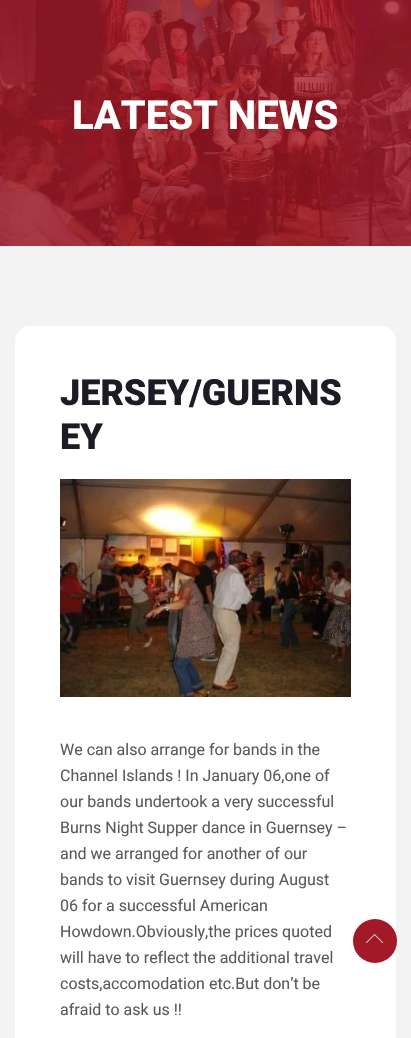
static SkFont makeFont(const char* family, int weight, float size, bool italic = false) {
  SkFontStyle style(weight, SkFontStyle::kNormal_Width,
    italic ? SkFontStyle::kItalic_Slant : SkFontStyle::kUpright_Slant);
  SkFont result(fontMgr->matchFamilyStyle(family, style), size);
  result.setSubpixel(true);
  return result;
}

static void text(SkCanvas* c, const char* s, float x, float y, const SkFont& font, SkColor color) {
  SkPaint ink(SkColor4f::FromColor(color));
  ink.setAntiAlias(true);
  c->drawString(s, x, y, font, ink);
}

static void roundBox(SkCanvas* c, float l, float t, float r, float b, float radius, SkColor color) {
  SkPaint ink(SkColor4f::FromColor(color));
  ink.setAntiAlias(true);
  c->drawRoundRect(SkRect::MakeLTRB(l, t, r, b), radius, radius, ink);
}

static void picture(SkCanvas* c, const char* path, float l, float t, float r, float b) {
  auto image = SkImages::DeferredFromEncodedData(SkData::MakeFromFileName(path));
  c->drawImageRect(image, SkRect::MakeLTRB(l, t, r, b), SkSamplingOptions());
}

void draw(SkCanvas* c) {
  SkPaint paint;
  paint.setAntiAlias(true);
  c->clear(0xfff3f3f3);
  picture(c, "img_01.png", 0, 0, 411, 246);
  SkFont face1 = makeFont("Roboto", 800, 40);
  text(c, "LATEST NEWS", 72, 129, face1, 0xffffffff);
  roundBox(c, 15, 326, 396, 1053, 15, 0xffffffff);
  SkFont face2 = makeFont("Roboto", 900, 36);
  text(c, "JERSEY/GUERNS", 60, 405, face2, 0xff1c1c24);
  text(c, "EY", 60, 449, face2, 0xff1c1c24);
  picture(c, "img_02.png", 60, 479, 351, 697);
  SkFont face3 = makeFont("Roboto", 400, 16);
  text(c, "We can also arrange for bands in the", 60, 755, face3, 0xff5a5a5a);
  text(c, "Channel Islands ! In January 06,one of", 60, 781, face3, 0xff5a5a5a);
  text(c, "our bands undertook a very successful", 60, 807, face3, 0xff5a5a5a);
  text(c, "Burns Night Supper dance in Guernsey –", 60, 833, face3, 0xff5a5a5a);
  text(c, "and we arranged for another of our", 60, 859, face3, 0xff5a5a5a);
  text(c, "bands to visit Guernsey during August", 60, 885, face3, 0xff5a5a5a);
  text(c, "06 for a successful American", 60, 911, face3, 0xff5a5a5a);
  text(c, "Howdown.Obviously,the prices quoted", 60, 937, face3, 0xff5a5a5a);
  text(c, "will have to reflect the additional travel", 60, 963, face3, 0xff5a5a5a);
  text(c, "costs,accomodation etc.But don’t be", 60, 989, face3, 0xff5a5a5a);
  text(c, "afraid to ask us !!", 60, 1015, face3, 0xff5a5a5a);
  paint.setColor(0xffa31927);
  c->drawCircle(375, 941, 22, paint);
  picture(c, "img_03.png", 366, 934, 384, 943);
}
